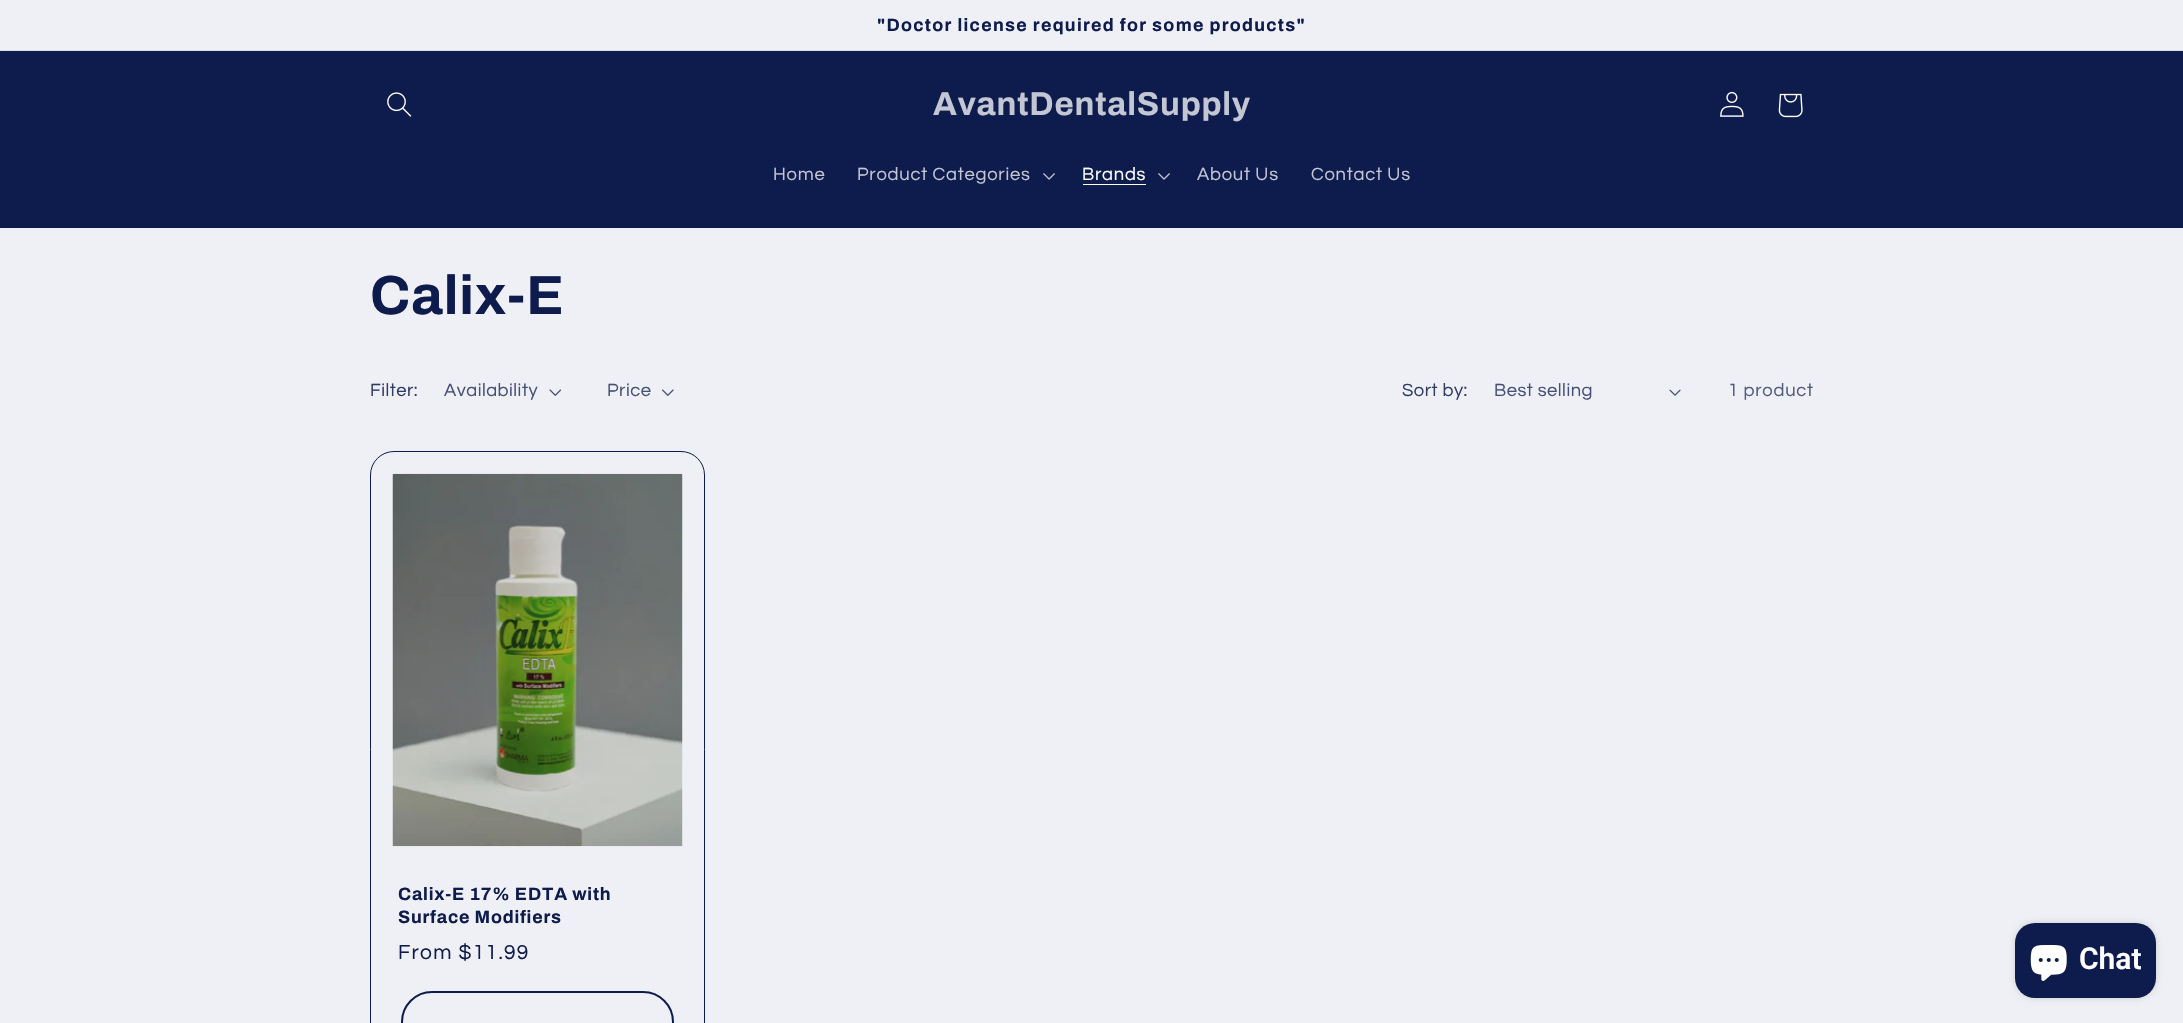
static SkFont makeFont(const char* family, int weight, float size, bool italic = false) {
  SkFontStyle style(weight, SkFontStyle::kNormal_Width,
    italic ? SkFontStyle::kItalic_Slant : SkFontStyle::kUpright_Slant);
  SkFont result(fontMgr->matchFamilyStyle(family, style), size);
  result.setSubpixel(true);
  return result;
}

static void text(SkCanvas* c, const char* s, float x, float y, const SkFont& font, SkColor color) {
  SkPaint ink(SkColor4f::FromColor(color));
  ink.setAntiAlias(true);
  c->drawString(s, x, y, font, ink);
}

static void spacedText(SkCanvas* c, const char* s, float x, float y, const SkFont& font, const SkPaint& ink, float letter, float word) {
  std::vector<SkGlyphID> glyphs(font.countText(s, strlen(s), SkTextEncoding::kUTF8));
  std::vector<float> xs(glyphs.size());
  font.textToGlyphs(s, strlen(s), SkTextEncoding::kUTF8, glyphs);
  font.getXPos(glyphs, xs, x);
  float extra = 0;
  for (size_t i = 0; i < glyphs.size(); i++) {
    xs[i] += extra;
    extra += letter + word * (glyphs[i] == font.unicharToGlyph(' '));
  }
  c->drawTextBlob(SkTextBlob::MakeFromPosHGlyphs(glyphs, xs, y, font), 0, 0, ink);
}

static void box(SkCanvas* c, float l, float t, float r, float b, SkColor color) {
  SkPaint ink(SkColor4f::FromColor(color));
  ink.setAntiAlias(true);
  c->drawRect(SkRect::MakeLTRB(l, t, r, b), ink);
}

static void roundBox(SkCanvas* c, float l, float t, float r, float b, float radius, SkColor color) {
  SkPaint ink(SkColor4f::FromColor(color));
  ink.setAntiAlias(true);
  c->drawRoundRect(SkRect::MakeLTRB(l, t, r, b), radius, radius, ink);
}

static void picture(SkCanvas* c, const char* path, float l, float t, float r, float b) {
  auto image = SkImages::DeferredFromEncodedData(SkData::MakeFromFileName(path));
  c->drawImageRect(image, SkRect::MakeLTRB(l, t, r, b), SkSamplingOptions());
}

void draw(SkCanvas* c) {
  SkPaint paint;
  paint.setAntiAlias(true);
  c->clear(0xffeff0f5);
  box(c, 0, 50, 2183, 51, 0xffdddfe8);
  SkFont face1 = makeFont("Archivo", 700, 17.9f);
  paint.setColor(0xff0e1b4d);
  spacedText(c, "\"Doctor license required for some products\"", 877, 31, face1, paint, 1.3f, 0);
  box(c, 0, 51, 2183, 228, 0xff0e1b4d);
  picture(c, "img_01.png", 387, 92, 412, 117);
  SkFont face2 = makeFont("Archivo", 700, 33);
  paint.setColor(0xffc3c6d3);
  spacedText(c, "AvantDentalSupply", 933, 115, face2, paint, 0.8f, 0);
  picture(c, "img_02.png", 1720, 91, 1744, 117);
  picture(c, "img_03.png", 1778, 93, 1803, 118);
  SkFont face3 = makeFont("Questrial", 400, 18.4f);
  spacedText(c, "Home", 773, 180, face3, paint, 0.75f, 0);
  spacedText(c, "Product Categories", 857, 180, face3, paint, 0.75f, 0);
  picture(c, "img_04.png", 1043, 173, 1055, 180);
  paint.setColor(0xffffffff);
  spacedText(c, "Brands", 1082, 180, face3, paint, 0.75f, 0);
  box(c, 1083, 184, 1146, 185, 0xffffffff);
  picture(c, "img_04.png", 1158, 173, 1170, 180);
  paint.setColor(0xffc3c6d3);
  spacedText(c, "About Us", 1197, 180, face3, paint, 0.75f, 0);
  spacedText(c, "Contact Us", 1311, 180, face3, paint, 0.75f, 0);
  SkFont face4 = makeFont("Archivo", 700, 55);
  paint.setColor(0xff0e1b4d);
  spacedText(c, "Calix-E", 370, 314, face4, paint, 0.8f, 0);
  paint.setColor(0xff303b66);
  spacedText(c, "Filter:", 370, 396, face3, paint, 0.5f, 0);
  paint.setColor(0xff465077);
  spacedText(c, "Availability", 444, 396, face3, paint, 0.5f, 0);
  picture(c, "img_05.png", 549, 389, 561, 396);
  spacedText(c, "Price", 607, 396, face3, paint, 0.5f, 0);
  picture(c, "img_06.png", 662, 389, 674, 396);
  paint.setColor(0xff303b66);
  spacedText(c, "Sort by:", 1402, 396, face3, paint, 0.5f, 0);
  paint.setColor(0xff465077);
  spacedText(c, "Best selling", 1494, 396, face3, paint, 0.5f, 0);
  picture(c, "img_07.png", 1669, 389, 1681, 396);
  paint.setColor(0xff525b7f);
  spacedText(c, "1 product", 1728, 396, face3, paint, 0.75f, 0);
  paint.setStyle(SkPaint::kStroke_Style);
  paint.setStrokeWidth(1);
  paint.setColor(0xff0e1b4d);
  c->drawRoundRect(SkRect::MakeLTRB(370.5f, 451.5f, 704.5f, 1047.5f), 23.5f, 23.5f, paint);
  picture(c, "img_08.png", 392, 473, 683, 847);
  paint.setStyle(SkPaint::kFill_Style);
  spacedText(c, "Calix-E 17% EDTA with", 398, 900, face1, paint, 0.8f, 0);
  spacedText(c, "Surface Modifiers", 398, 923, face1, paint, 0.8f, 0);
  SkFont face5 = makeFont("Questrial", 400, 21);
  spacedText(c, "From $11.99", 398, 959, face5, paint, 1.3f, 0);
  paint.setStyle(SkPaint::kStroke_Style);
  paint.setStrokeWidth(2);
  c->drawRoundRect(SkRect::MakeLTRB(402, 992, 673, 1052), 30, 30, paint);
  paint.setStyle(SkPaint::kFill_Style);
  paint.setColor(0x26000000);
  paint.setMaskFilter(SkMaskFilter::MakeBlur(kNormal_SkBlurStyle, 3));
  c->drawRoundRect(SkRect::MakeLTRB(2015, 923, 2156, 998), 20, 20, paint);
  paint.setMaskFilter(nullptr);
  roundBox(c, 2015, 923, 2156, 998, 20, 0xff0e1b4d);
  picture(c, "img_09.png", 2030, 945, 2067, 981);
  SkFont face6 = makeFont("Roboto", 600, 30);
  text(c, "Chat", 2079, 969, face6, 0xffffffff);
}
